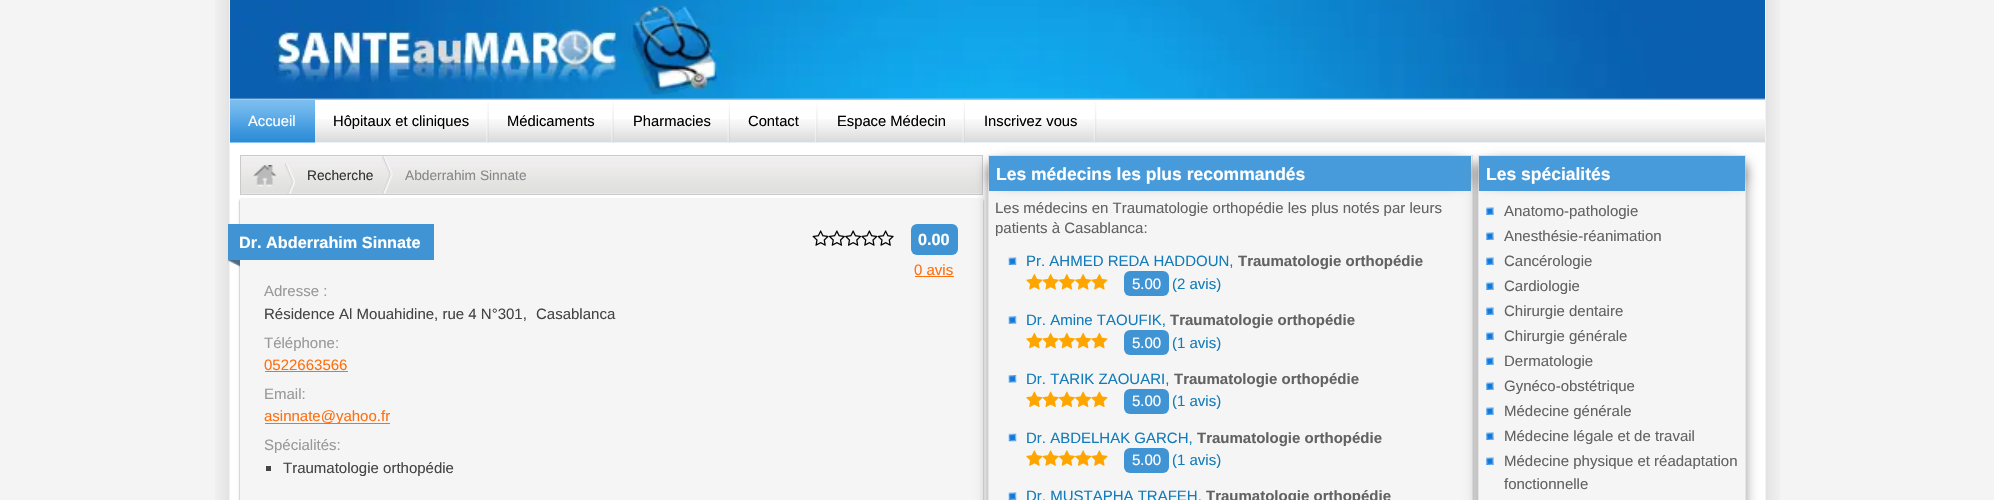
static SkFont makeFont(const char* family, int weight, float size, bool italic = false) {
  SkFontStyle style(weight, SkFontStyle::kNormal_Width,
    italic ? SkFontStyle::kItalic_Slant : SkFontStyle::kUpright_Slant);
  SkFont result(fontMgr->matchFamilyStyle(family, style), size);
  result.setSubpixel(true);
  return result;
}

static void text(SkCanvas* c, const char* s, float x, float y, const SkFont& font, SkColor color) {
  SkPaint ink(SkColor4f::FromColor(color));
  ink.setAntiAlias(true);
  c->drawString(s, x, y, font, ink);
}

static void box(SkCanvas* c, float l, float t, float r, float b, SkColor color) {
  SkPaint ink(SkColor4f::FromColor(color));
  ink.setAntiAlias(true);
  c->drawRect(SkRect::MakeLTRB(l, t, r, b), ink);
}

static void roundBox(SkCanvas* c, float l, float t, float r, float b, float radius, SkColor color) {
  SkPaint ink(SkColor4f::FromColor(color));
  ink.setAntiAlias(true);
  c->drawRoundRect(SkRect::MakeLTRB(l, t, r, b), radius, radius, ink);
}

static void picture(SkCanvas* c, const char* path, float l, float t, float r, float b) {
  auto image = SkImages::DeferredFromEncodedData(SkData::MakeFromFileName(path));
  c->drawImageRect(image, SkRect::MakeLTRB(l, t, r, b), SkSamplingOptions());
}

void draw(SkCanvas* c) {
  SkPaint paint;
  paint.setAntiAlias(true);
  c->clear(0xfff4f4f4);
  picture(c, "img_01.png", 215, 0, 1780, 500);
  picture(c, "img_02.png", 230, 0, 1765, 99);
  picture(c, "img_03.png", 315, 119, 1765, 143);
  box(c, 230, 99, 1765, 100, 0xffc1c1c1);
  box(c, 230, 142, 315, 143, 0xffa7d9ff);
  picture(c, "img_04.png", 230, 100, 315, 143);
  SkFont face1 = makeFont("Liberation Sans", 400, 14.75f);
  text(c, "Accueil", 248, 126, face1, 0xffffffff);
  picture(c, "img_05.png", 486, 102, 489, 143);
  text(c, "Hôpitaux et cliniques", 333, 126, face1, 0xff000000);
  picture(c, "img_05.png", 611, 102, 614, 143);
  text(c, "Médicaments", 507, 126, face1, 0xff000000);
  picture(c, "img_06.png", 727, 102, 730, 143);
  text(c, "Pharmacies", 633, 126, face1, 0xff000000);
  picture(c, "img_07.png", 815, 103, 818, 143);
  text(c, "Contact", 748, 126, face1, 0xff000000);
  picture(c, "img_06.png", 962, 102, 965, 143);
  text(c, "Espace Médecin", 837, 126, face1, 0xff000000);
  picture(c, "img_08.png", 1093, 102, 1097, 143);
  text(c, "Inscrivez vous", 984, 126, face1, 0xff000000);
  picture(c, "img_09.png", 241, 156, 982, 194);
  paint.setStyle(SkPaint::kStroke_Style);
  paint.setStrokeWidth(1);
  paint.setColor(0xffcacaca);
  c->drawRect(SkRect::MakeLTRB(240.5f, 155.5f, 982.5f, 194.5f), paint);
  picture(c, "img_10.png", 285, 163, 295, 194);
  picture(c, "img_11.png", 253, 165, 277, 187);
  picture(c, "img_12.png", 382, 156, 393, 194);
  SkFont face2 = makeFont("Liberation Sans", 400, 13.75f);
  text(c, "Recherche", 307, 180, face2, 0xff333333);
  text(c, "Abderrahim Sinnate", 405, 180, face2, 0xff888888);
  paint.setStyle(SkPaint::kFill_Style);
  paint.setColor(0xff888888);
  paint.setMaskFilter(SkMaskFilter::MakeBlur(kNormal_SkBlurStyle, 1));
  c->drawRect(SkRect::MakeLTRB(240, 200, 983, 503), paint);
  paint.setMaskFilter(nullptr);
  box(c, 240, 199, 983, 500, 0xfff5f5f5);
  picture(c, "img_13.png", 227, 260, 240, 267);
  box(c, 228, 224, 434, 260, 0xff4094d4);
  SkFont face3 = makeFont("Liberation Sans", 700, 16.25f);
  text(c, "Dr. Abderrahim Sinnate", 239, 248, face3, 0xffffffff);
  picture(c, "img_14.png", 812, 230, 829, 246);
  picture(c, "img_15.png", 828, 230, 845, 246);
  picture(c, "img_16.png", 845, 230, 862, 246);
  picture(c, "img_17.png", 861, 230, 878, 246);
  picture(c, "img_18.png", 877, 230, 894, 246);
  roundBox(c, 911, 224, 958, 255, 6, 0xff4094d4);
  text(c, "0.00", 918, 245, face3, 0xffffffff);
  SkFont face4 = makeFont("Liberation Sans", 400, 15);
  text(c, "0 avis", 914, 275, face4, 0xffff6f0f);
  box(c, 915, 276, 954, 277, 0xffff6f0f);
  text(c, "Adresse :", 264, 296, face4, 0xff999999);
  text(c, "Résidence Al Mouahidine, rue 4 N°301,", 264, 319, face4, 0xff444444);
  text(c, "Casablanca", 536, 319, face4, 0xff444444);
  text(c, "Téléphone:", 264, 348, face4, 0xff999999);
  text(c, "0522663566", 264, 370, face4, 0xffff6f0f);
  box(c, 265, 371, 348, 372, 0xffff6f0f);
  text(c, "Email:", 264, 399, face4, 0xff999999);
  box(c, 265, 423, 390, 424, 0xffff6f0f);
  text(c, "asinnate@yahoo.fr", 264, 421, face4, 0xffff6f0f);
  text(c, "Spécialités:", 264, 450, face4, 0xff999999);
  box(c, 266, 466, 271, 471, 0xff444444);
  text(c, "Traumatologie orthopédie", 283, 473, face4, 0xff444444);
  paint.setMaskFilter(SkMaskFilter::MakeBlur(kNormal_SkBlurStyle, 6));
  c->drawRect(SkRect::MakeLTRB(989, 164, 1456, 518), paint);
  paint.setMaskFilter(nullptr);
  paint.setMaskFilter(SkMaskFilter::MakeBlur(kNormal_SkBlurStyle, 6));
  c->drawRect(SkRect::MakeLTRB(1004, 164, 1471, 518), paint);
  paint.setMaskFilter(nullptr);
  paint.setColor(0xfff5f5f5);
  c->drawRect(SkRect::MakeLTRB(988.5f, 155.5f, 1472.5f, 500.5f), paint);
  paint.setStyle(SkPaint::kStroke_Style);
  paint.setColor(0xffe5e5e5);
  c->drawRect(SkRect::MakeLTRB(988.5f, 155.5f, 1472.5f, 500.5f), paint);
  paint.setStyle(SkPaint::kFill_Style);
  paint.setColor(0xff888888);
  paint.setMaskFilter(SkMaskFilter::MakeBlur(kNormal_SkBlurStyle, 6));
  c->drawRect(SkRect::MakeLTRB(990, 165, 1455, 183), paint);
  paint.setMaskFilter(nullptr);
  paint.setMaskFilter(SkMaskFilter::MakeBlur(kNormal_SkBlurStyle, 6));
  c->drawRect(SkRect::MakeLTRB(1005, 165, 1470, 183), paint);
  paint.setMaskFilter(nullptr);
  box(c, 989, 156, 1471, 191, 0xff489bda);
  SkFont face5 = makeFont("Liberation Sans", 700, 17.5f);
  text(c, "Les médecins les plus recommandés", 996, 180, face5, 0xffffffff);
  text(c, "Les médecins en Traumatologie orthopédie les plus notés par leurs", 995, 213, face4, 0xff626262);
  text(c, "patients à Casablanca:", 995, 233, face4, 0xff626262);
  picture(c, "img_19.png", 1008, 257, 1017, 265);
  text(c, "Pr. AHMED REDA HADDOUN,", 1026, 266, face4, 0xff147cbb);
  SkFont face6 = makeFont("Liberation Sans", 700, 15);
  text(c, "Traumatologie orthopédie", 1238, 266, face6, 0xff626262);
  picture(c, "img_20.png", 1026, 274, 1043, 290);
  picture(c, "img_21.png", 1042, 274, 1059, 290);
  picture(c, "img_22.png", 1058, 274, 1075, 290);
  picture(c, "img_23.png", 1075, 274, 1092, 290);
  picture(c, "img_24.png", 1091, 274, 1108, 290);
  roundBox(c, 1124, 271, 1169, 296, 6, 0xff4094d4);
  text(c, "5.00", 1132, 289, face4, 0xffffffff);
  text(c, "(2 avis)", 1172, 289, face4, 0xff147cbb);
  picture(c, "img_25.png", 1008, 316, 1017, 324);
  text(c, "Dr. Amine TAOUFIK,", 1026, 325, face4, 0xff147cbb);
  text(c, "Traumatologie orthopédie", 1170, 325, face6, 0xff626262);
  picture(c, "img_26.png", 1026, 332, 1043, 349);
  picture(c, "img_27.png", 1042, 332, 1059, 349);
  picture(c, "img_28.png", 1058, 332, 1075, 349);
  picture(c, "img_29.png", 1075, 332, 1092, 349);
  picture(c, "img_30.png", 1091, 332, 1108, 349);
  roundBox(c, 1124, 330, 1169, 355, 6, 0xff4094d4);
  text(c, "5.00", 1132, 348, face4, 0xffffffff);
  text(c, "(1 avis)", 1172, 348, face4, 0xff147cbb);
  picture(c, "img_31.png", 1008, 375, 1017, 383);
  text(c, "Dr. TARIK ZAOUARI,", 1026, 384, face4, 0xff147cbb);
  text(c, "Traumatologie orthopédie", 1174, 384, face6, 0xff626262);
  picture(c, "img_32.png", 1026, 391, 1043, 407);
  picture(c, "img_33.png", 1042, 391, 1059, 407);
  picture(c, "img_34.png", 1058, 391, 1075, 407);
  picture(c, "img_35.png", 1075, 391, 1092, 407);
  picture(c, "img_36.png", 1091, 391, 1108, 407);
  roundBox(c, 1124, 389, 1169, 414, 6, 0xff4094d4);
  text(c, "5.00", 1132, 406, face4, 0xffffffff);
  text(c, "(1 avis)", 1172, 406, face4, 0xff147cbb);
  picture(c, "img_37.png", 1008, 433, 1017, 442);
  text(c, "Dr. ABDELHAK GARCH,", 1026, 443, face4, 0xff147cbb);
  text(c, "Traumatologie orthopédie", 1197, 443, face6, 0xff626262);
  picture(c, "img_38.png", 1026, 450, 1043, 466);
  picture(c, "img_39.png", 1042, 450, 1059, 466);
  picture(c, "img_40.png", 1058, 450, 1075, 466);
  picture(c, "img_41.png", 1075, 450, 1092, 466);
  picture(c, "img_42.png", 1091, 450, 1108, 466);
  roundBox(c, 1124, 448, 1169, 473, 6, 0xff4094d4);
  text(c, "5.00", 1132, 465, face4, 0xffffffff);
  text(c, "(1 avis)", 1172, 465, face4, 0xff147cbb);
  picture(c, "img_19.png", 1008, 492, 1017, 500);
  text(c, "Dr. MUSTAPHA TRAFEH,", 1026, 501, face4, 0xff147cbb);
  text(c, "Traumatologie orthopédie", 1206, 501, face6, 0xff626262);
  paint.setMaskFilter(SkMaskFilter::MakeBlur(kNormal_SkBlurStyle, 6));
  c->drawRect(SkRect::MakeLTRB(1479, 164, 1730, 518), paint);
  paint.setMaskFilter(nullptr);
  paint.setMaskFilter(SkMaskFilter::MakeBlur(kNormal_SkBlurStyle, 6));
  c->drawRect(SkRect::MakeLTRB(1494, 164, 1745, 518), paint);
  paint.setMaskFilter(nullptr);
  box(c, 1479, 191, 1745, 500, 0xfff5f5f5);
  paint.setStyle(SkPaint::kStroke_Style);
  paint.setColor(0xffe5e5e5);
  c->drawRect(SkRect::MakeLTRB(1478.5f, 155.5f, 1745.5f, 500.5f), paint);
  paint.setStyle(SkPaint::kFill_Style);
  paint.setColor(0xff888888);
  paint.setMaskFilter(SkMaskFilter::MakeBlur(kNormal_SkBlurStyle, 6));
  c->drawRect(SkRect::MakeLTRB(1480, 165, 1729, 183), paint);
  paint.setMaskFilter(nullptr);
  paint.setMaskFilter(SkMaskFilter::MakeBlur(kNormal_SkBlurStyle, 6));
  c->drawRect(SkRect::MakeLTRB(1495, 165, 1744, 183), paint);
  paint.setMaskFilter(nullptr);
  box(c, 1479, 156, 1745, 191, 0xff489bda);
  text(c, "Les spécialités", 1486, 180, face5, 0xffffffff);
  picture(c, "img_43.png", 1486, 207, 1494, 215);
  text(c, "Anatomo-pathologie", 1504, 216, face4, 0xff626262);
  picture(c, "img_43.png", 1486, 232, 1494, 240);
  text(c, "Anesthésie-réanimation", 1504, 241, face4, 0xff626262);
  picture(c, "img_43.png", 1486, 257, 1494, 265);
  text(c, "Cancérologie", 1504, 266, face4, 0xff626262);
  picture(c, "img_43.png", 1486, 282, 1494, 290);
  text(c, "Cardiologie", 1504, 291, face4, 0xff626262);
  picture(c, "img_43.png", 1486, 307, 1494, 315);
  text(c, "Chirurgie dentaire", 1504, 316, face4, 0xff626262);
  picture(c, "img_43.png", 1486, 332, 1494, 340);
  text(c, "Chirurgie générale", 1504, 341, face4, 0xff626262);
  picture(c, "img_43.png", 1486, 357, 1494, 365);
  text(c, "Dermatologie", 1504, 366, face4, 0xff626262);
  picture(c, "img_43.png", 1486, 382, 1494, 390);
  text(c, "Gynéco-obstétrique", 1504, 391, face4, 0xff626262);
  picture(c, "img_43.png", 1486, 407, 1494, 415);
  text(c, "Médecine générale", 1504, 416, face4, 0xff626262);
  picture(c, "img_43.png", 1486, 432, 1494, 440);
  text(c, "Médecine légale et de travail", 1504, 441, face4, 0xff626262);
  picture(c, "img_43.png", 1486, 457, 1494, 465);
  text(c, "Médecine physique et réadaptation", 1504, 466, face4, 0xff626262);
  text(c, "fonctionnelle", 1504, 489, face4, 0xff626262);
}
